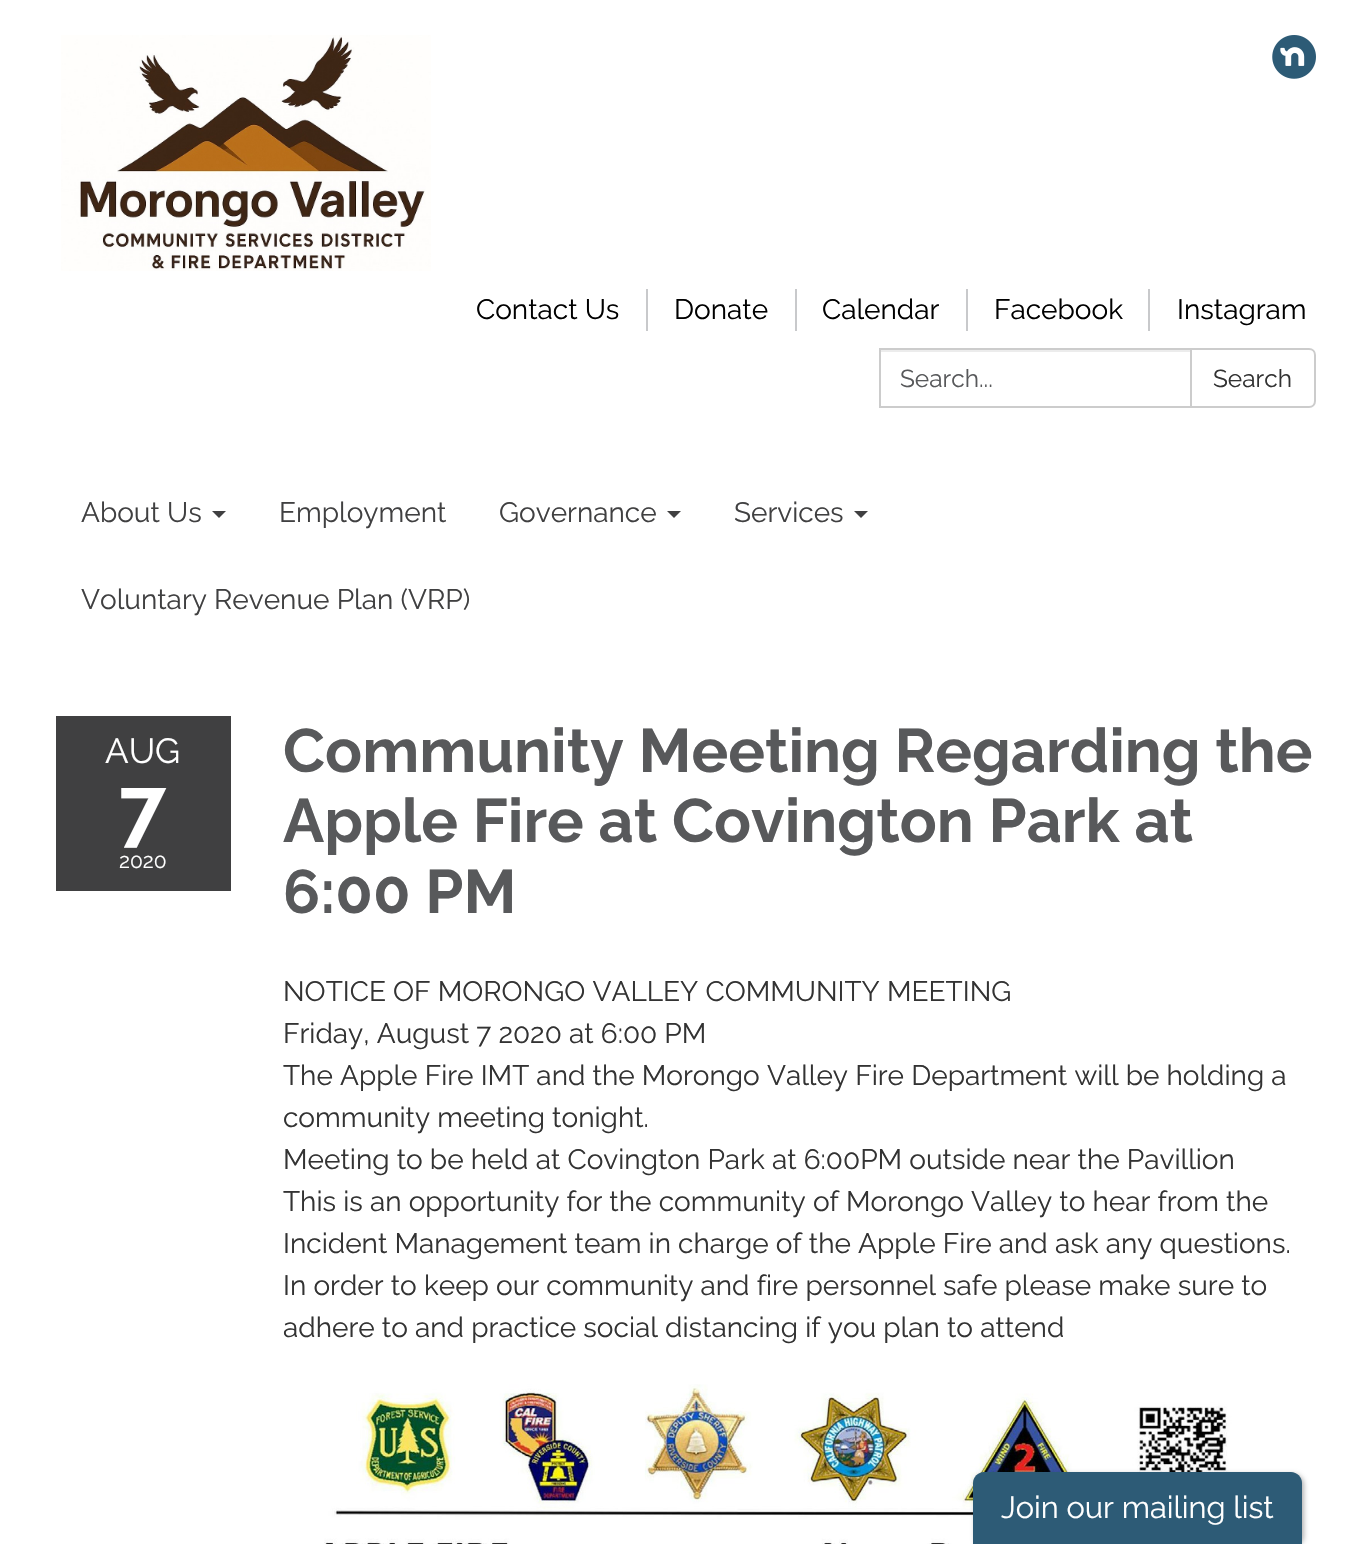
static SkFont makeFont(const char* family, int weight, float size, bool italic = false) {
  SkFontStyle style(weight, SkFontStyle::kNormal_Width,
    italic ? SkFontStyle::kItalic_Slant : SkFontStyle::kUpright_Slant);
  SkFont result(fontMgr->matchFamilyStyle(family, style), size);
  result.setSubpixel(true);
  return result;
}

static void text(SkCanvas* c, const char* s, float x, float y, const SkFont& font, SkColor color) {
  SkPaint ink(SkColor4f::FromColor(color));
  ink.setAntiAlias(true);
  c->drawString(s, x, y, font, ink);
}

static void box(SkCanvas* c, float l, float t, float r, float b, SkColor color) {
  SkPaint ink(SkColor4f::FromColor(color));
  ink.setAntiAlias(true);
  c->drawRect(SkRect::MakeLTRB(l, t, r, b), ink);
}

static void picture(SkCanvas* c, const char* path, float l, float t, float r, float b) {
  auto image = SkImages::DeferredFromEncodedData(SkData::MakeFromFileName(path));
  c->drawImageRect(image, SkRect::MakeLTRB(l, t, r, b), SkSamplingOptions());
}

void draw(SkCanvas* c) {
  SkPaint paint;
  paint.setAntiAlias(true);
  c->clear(0xffffffff);
  picture(c, "img_01.png", 61, 35, 431, 271);
  picture(c, "img_02.png", 1272, 35, 1316, 79);
  SkFont face1 = makeFont("Raleway", 400, 28);
  text(c, "Contact Us", 476, 319, face1, 0xff000000);
  box(c, 646, 289, 648, 331, 0xffc8c9cb);
  text(c, "Donate", 674, 319, face1, 0xff000000);
  box(c, 795, 289, 797, 331, 0xffc8c9cb);
  text(c, "Calendar", 822, 319, face1, 0xff000000);
  box(c, 966, 289, 968, 331, 0xffc8c9cb);
  text(c, "Facebook", 994, 319, face1, 0xff000000);
  box(c, 1148, 289, 1150, 331, 0xffc8c9cb);
  text(c, "Instagram", 1177, 319, face1, 0xff000000);
  box(c, 880, 350, 1190, 352, 0xffececec);
  paint.setStyle(SkPaint::kStroke_Style);
  paint.setStrokeWidth(2);
  paint.setColor(0xffcccccc);
  c->drawRect(SkRect::MakeLTRB(880, 349, 1191, 407), paint);
  SkFont face2 = makeFont("Raleway", 400, 24.5f);
  text(c, "Search...", 900, 387, face2, 0xff58595b);
  paint.setStyle(SkPaint::kFill_Style);
  paint.setColor(0xffffffff);
  c->drawPath(SkPathBuilder().moveTo(1191, 349).lineTo(1309, 349).cubicTo(1312.5f, 349, 1315, 351.5f, 1315, 355).lineTo(1315, 401).cubicTo(1315, 404.5f, 1312.5f, 407, 1309, 407).lineTo(1191, 407).close().detach(), paint);
  paint.setStyle(SkPaint::kStroke_Style);
  paint.setColor(0xffcccccc);
  c->drawPath(SkPathBuilder().moveTo(1191, 349).lineTo(1309, 349).cubicTo(1312.5f, 349, 1315, 351.5f, 1315, 355).lineTo(1315, 401).cubicTo(1315, 404.5f, 1312.5f, 407, 1309, 407).lineTo(1191, 407).close().detach(), paint);
  text(c, "Search", 1213, 387, face2, 0xff333333);
  text(c, "About Us", 81, 522, face1, 0xff404041);
  paint.setStyle(SkPaint::kFill_Style);
  paint.setColor(0xff404041);
  c->drawPath(SkPathBuilder().moveTo(212, 511).lineTo(226, 511).lineTo(219, 518).close().detach(), paint);
  text(c, "Employment", 279, 522, face1, 0xff404041);
  text(c, "Governance", 499, 522, face1, 0xff404041);
  c->drawPath(SkPathBuilder().moveTo(667, 511).lineTo(681, 511).lineTo(674, 518).close().detach(), paint);
  text(c, "Services", 734, 522, face1, 0xff404041);
  c->drawPath(SkPathBuilder().moveTo(854, 511).lineTo(868, 511).lineTo(861, 518).close().detach(), paint);
  text(c, "Voluntary Revenue Plan (VRP)", 81, 609, face1, 0xff404041);
  box(c, 56, 716, 231, 891, 0xff404041);
  SkFont face3 = makeFont("Raleway", 400, 35);
  text(c, "AUG", 105, 763, face3, 0xffffffff);
  SkFont face4 = makeFont("Raleway", 700, 84);
  text(c, "7", 119, 837, face4, 0xffffffff);
  SkFont face5 = makeFont("Raleway", 400, 21);
  text(c, "2020", 119, 868, face5, 0xffffffff);
  SkFont face6 = makeFont("Raleway", 700, 61.25f);
  text(c, "Community Meeting Regarding the", 283, 772, face6, 0xff58595b);
  text(c, "Apple Fire at Covington Park at", 283, 842, face6, 0xff58595b);
  text(c, "6:00 PM", 283, 913, face6, 0xff58595b);
  text(c, "NOTICE OF MORONGO VALLEY COMMUNITY MEETING", 283, 1001, face1, 0xff333333);
  text(c, "Friday, August 7 2020 at 6:00 PM", 283, 1043, face1, 0xff333333);
  text(c, "The Apple Fire IMT and the Morongo Valley Fire Department will be holding a", 283, 1085, face1, 0xff333333);
  text(c, "community meeting tonight.", 283, 1127, face1, 0xff333333);
  text(c, "Meeting to be held at Covington Park at 6:00PM outside near the Pavillion", 283, 1169, face1, 0xff333333);
  text(c, "This is an opportunity for the community of Morongo Valley to hear from the", 283, 1211, face1, 0xff333333);
  text(c, "Incident Management team in charge of the Apple Fire and ask any questions.", 283, 1253, face1, 0xff333333);
  text(c, "In order to keep our community and fire personnel safe please make sure to", 283, 1295, face1, 0xff333333);
  text(c, "adhere to and practice social distancing if you plan to attend", 283, 1337, face1, 0xff333333);
  picture(c, "img_03.png", 324, 1384, 1250, 1544);
  paint.setColor(0x4d000000);
  paint.setMaskFilter(SkMaskFilter::MakeBlur(kNormal_SkBlurStyle, 2.5f));
  c->drawRoundRect(SkRect::MakeLTRB(975, 1474, 1304, 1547), 11, 11, paint);
  paint.setMaskFilter(nullptr);
  paint.setColor(0xff2d5b76);
  c->drawPath(SkPathBuilder().moveTo(984, 1472).lineTo(1291, 1472).cubicTo(1297, 1472, 1302, 1477, 1302, 1483).lineTo(1302, 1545).lineTo(973, 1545).lineTo(973, 1483).cubicTo(973, 1477, 978, 1472, 984, 1472).close().detach(), paint);
  SkFont face7 = makeFont("Raleway", 400, 30.75f);
  text(c, "Join our mailing list", 1001, 1518, face7, 0xffffffff);
}
